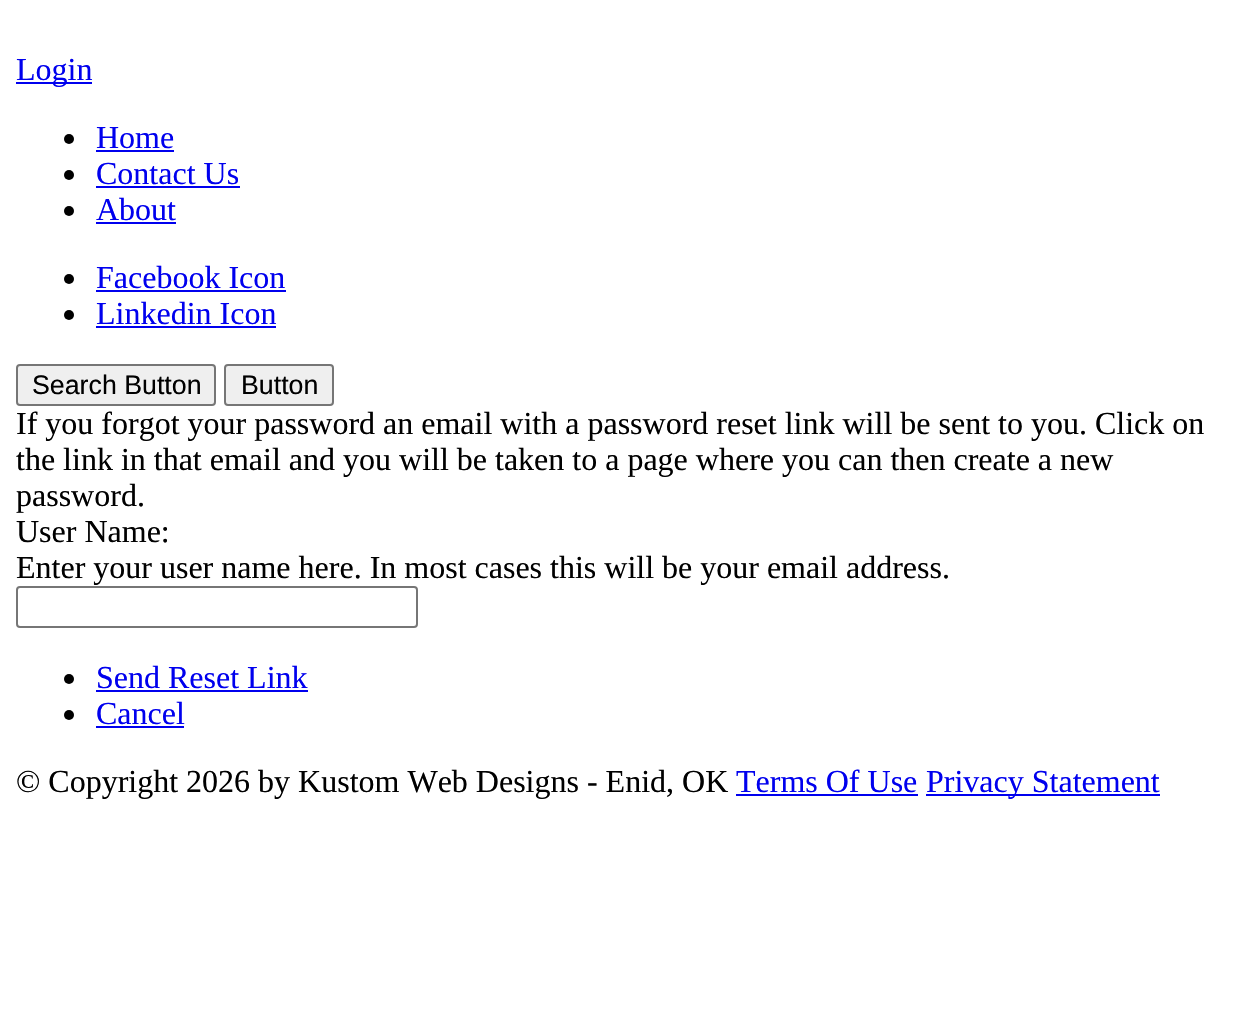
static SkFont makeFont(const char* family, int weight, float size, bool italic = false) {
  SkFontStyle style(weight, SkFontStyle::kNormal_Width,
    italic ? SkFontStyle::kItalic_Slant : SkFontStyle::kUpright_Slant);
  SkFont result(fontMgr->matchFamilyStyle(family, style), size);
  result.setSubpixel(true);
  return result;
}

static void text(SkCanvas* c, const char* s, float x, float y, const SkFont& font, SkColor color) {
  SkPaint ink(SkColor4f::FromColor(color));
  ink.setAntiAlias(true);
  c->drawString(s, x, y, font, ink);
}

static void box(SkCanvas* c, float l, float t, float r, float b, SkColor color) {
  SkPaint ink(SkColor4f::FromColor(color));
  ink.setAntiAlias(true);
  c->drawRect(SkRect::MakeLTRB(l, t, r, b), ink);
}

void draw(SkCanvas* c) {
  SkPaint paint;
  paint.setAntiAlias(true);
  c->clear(0xffffffff);
  box(c, 16, 82, 92, 84, 0xff0000ee);
  SkFont face1 = makeFont("Liberation Serif", 400, 32);
  text(c, "Login", 16, 80, face1, 0xff0000ee);
  paint.setColor(0xff000000);
  c->drawCircle(69, 139, 5, paint);
  text(c, "Home", 96, 148, face1, 0xff0000ee);
  box(c, 96, 150, 174, 152, 0xff0000ee);
  c->drawCircle(69, 175, 5, paint);
  text(c, "Contact Us", 96, 184, face1, 0xff0000ee);
  box(c, 96, 186, 240, 188, 0xff0000ee);
  c->drawCircle(69, 211, 5, paint);
  text(c, "About", 96, 220, face1, 0xff0000ee);
  box(c, 96, 222, 176, 224, 0xff0000ee);
  c->drawCircle(69, 279, 5, paint);
  text(c, "Facebook Icon", 96, 288, face1, 0xff0000ee);
  box(c, 96, 290, 286, 292, 0xff0000ee);
  c->drawCircle(69, 315, 5, paint);
  text(c, "Linkedin Icon", 96, 324, face1, 0xff0000ee);
  box(c, 96, 326, 276, 328, 0xff0000ee);
  paint.setColor(0xffefefef);
  c->drawRoundRect(SkRect::MakeLTRB(17, 365, 215, 405), 3, 3, paint);
  paint.setStyle(SkPaint::kStroke_Style);
  paint.setStrokeWidth(2);
  paint.setColor(0xff767676);
  c->drawRoundRect(SkRect::MakeLTRB(17, 365, 215, 405), 3, 3, paint);
  SkFont face2 = makeFont("Liberation Sans", 400, 26.75f);
  text(c, "Search Button", 32, 394, face2, 0xff000000);
  paint.setStyle(SkPaint::kFill_Style);
  paint.setColor(0xffefefef);
  c->drawRoundRect(SkRect::MakeLTRB(225, 365, 333, 405), 3, 3, paint);
  paint.setStyle(SkPaint::kStroke_Style);
  paint.setColor(0xff767676);
  c->drawRoundRect(SkRect::MakeLTRB(225, 365, 333, 405), 3, 3, paint);
  text(c, "Button", 241, 394, face2, 0xff000000);
  text(c, "If you forgot your password an email with a password reset link will be sent to you. Click on", 16, 434, face1, 0xff000000);
  text(c, "the link in that email and you will be taken to a page where you can then create a new", 16, 470, face1, 0xff000000);
  text(c, "password.", 16, 506, face1, 0xff000000);
  text(c, "User Name:", 16, 542, face1, 0xff000000);
  text(c, "Enter your user name here. In most cases this will be your email address.", 16, 578, face1, 0xff000000);
  c->drawRoundRect(SkRect::MakeLTRB(17, 587, 417, 627), 3, 3, paint);
  paint.setStyle(SkPaint::kFill_Style);
  paint.setColor(0xff000000);
  c->drawCircle(69, 679, 5, paint);
  text(c, "Send Reset Link", 96, 688, face1, 0xff0000ee);
  box(c, 96, 690, 308, 692, 0xff0000ee);
  c->drawCircle(69, 715, 5, paint);
  text(c, "Cancel", 96, 724, face1, 0xff0000ee);
  box(c, 96, 726, 184, 728, 0xff0000ee);
  text(c, "© Copyright 2026 by Kustom Web Designs - Enid, OK", 16, 792, face1, 0xff000000);
  text(c, "Terms Of Use", 736, 792, face1, 0xff0000ee);
  box(c, 736, 794, 918, 796, 0xff0000ee);
  box(c, 926, 794, 1160, 796, 0xff0000ee);
  text(c, "Privacy Statement", 926, 792, face1, 0xff0000ee);
}
